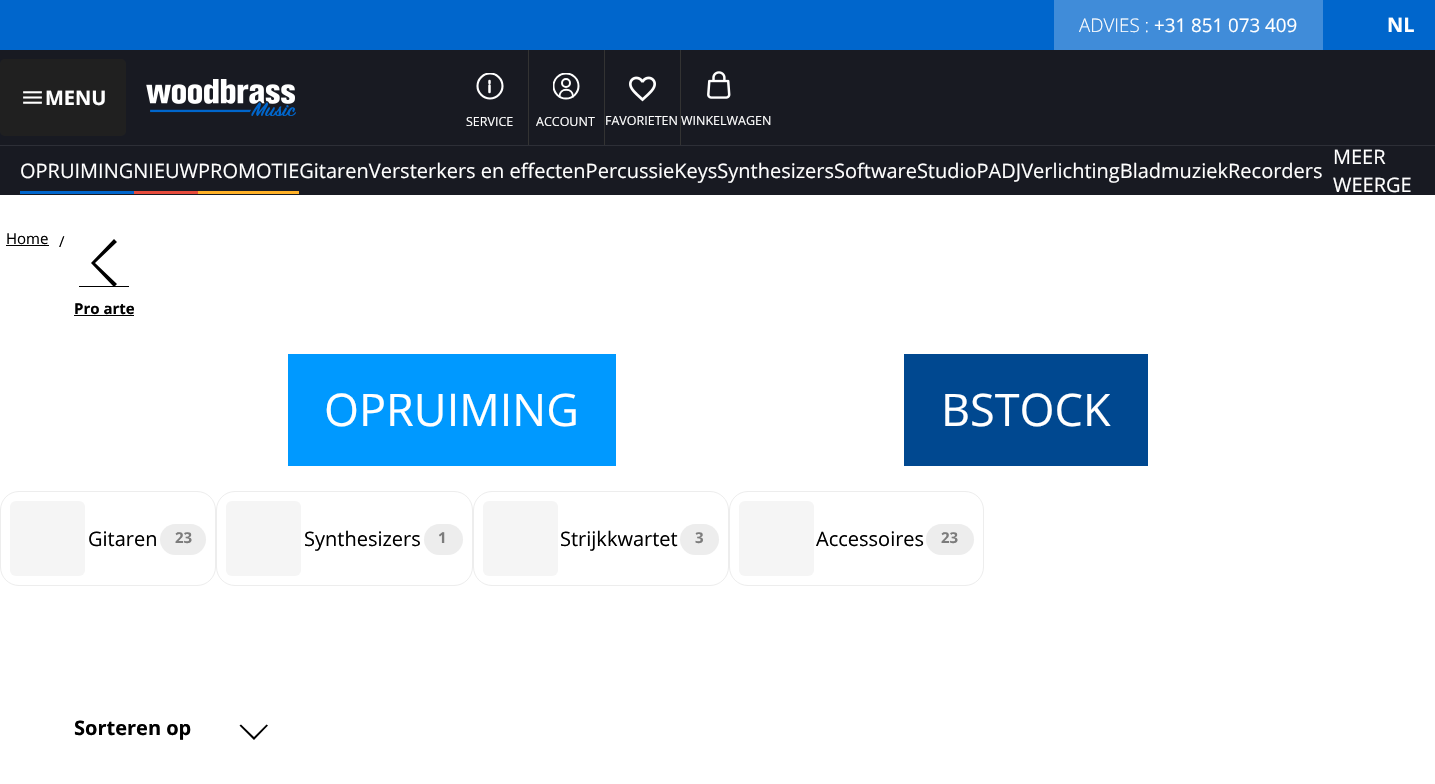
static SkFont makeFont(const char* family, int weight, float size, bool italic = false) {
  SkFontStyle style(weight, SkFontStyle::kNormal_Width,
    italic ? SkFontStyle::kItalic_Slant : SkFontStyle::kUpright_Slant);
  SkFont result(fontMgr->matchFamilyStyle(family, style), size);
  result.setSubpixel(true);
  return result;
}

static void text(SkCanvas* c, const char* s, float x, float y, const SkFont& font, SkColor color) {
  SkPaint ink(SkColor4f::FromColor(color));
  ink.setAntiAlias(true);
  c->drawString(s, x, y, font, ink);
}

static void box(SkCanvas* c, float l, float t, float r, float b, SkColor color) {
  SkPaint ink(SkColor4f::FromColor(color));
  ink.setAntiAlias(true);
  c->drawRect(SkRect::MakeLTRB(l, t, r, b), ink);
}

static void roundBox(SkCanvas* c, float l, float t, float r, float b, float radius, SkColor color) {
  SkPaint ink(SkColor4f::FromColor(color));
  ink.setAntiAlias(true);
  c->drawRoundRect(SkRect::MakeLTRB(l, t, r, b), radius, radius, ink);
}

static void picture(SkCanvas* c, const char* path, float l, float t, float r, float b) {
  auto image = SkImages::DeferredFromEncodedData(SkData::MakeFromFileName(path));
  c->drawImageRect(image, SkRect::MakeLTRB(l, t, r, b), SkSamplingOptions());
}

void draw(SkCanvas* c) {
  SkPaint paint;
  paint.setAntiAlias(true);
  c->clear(0xff0066cc);
  box(c, 1054, 0, 1323, 50, 0xff408cd9);
  SkFont face1 = makeFont("Open Sans", 300, 18.75f);
  text(c, "ADVIES :", 1079, 32, face1, 0xffffffff);
  SkFont face2 = makeFont("Open Sans", 400, 18.75f);
  text(c, "+31 851 073 409", 1154, 32, face2, 0xffffffff);
  SkFont face3 = makeFont("Open Sans", 700, 20);
  text(c, "NL", 1387, 32, face3, 0xffffffff);
  box(c, 0, 50, 1435, 145, 0xff181a22);
  roundBox(c, 0, 59, 126, 136, 5, 0xff202020);
  picture(c, "img_01.png", 23, 91, 42, 104);
  text(c, "MENU", 45, 105, face3, 0xffffffff);
  picture(c, "img_02.png", 146, 79, 296, 116);
  box(c, 528, 50, 529, 145, 0xff333333);
  box(c, 604, 50, 605, 145, 0xff333333);
  picture(c, "img_03.png", 629, 76, 656, 102);
  SkFont face4 = makeFont("Open Sans", 400, 12.5f);
  text(c, "FAVORIETEN", 605, 125, face4, 0xffffffff);
  box(c, 680, 50, 681, 145, 0xff333333);
  c->save();
  c->clipRect(SkRect::MakeLTRB(476, 73, 504, 100));
  paint.setStyle(SkPaint::kStroke_Style);
  paint.setStrokeWidth(2.1f);
  paint.setColor(0xffffffff);
  c->drawCircle(490, 86, 12.5f, paint);
  c->restore();
  paint.setStrokeWidth(2.5f);
  paint.setStrokeCap(SkPaint::kRound_Cap);
  c->drawPath(SkPathBuilder().moveTo(489.5f, 92).lineTo(489.5f, 85.5f).moveTo(489.5f, 83).lineTo(489.5f, 81).detach(), paint);
  text(c, "SERVICE", 466, 126, face4, 0xffffffff);
  paint.setStrokeWidth(2);
  paint.setStrokeCap(SkPaint::kButt_Cap);
  c->drawCircle(566, 83, 4, paint);
  paint.setStrokeCap(SkPaint::kRound_Cap);
  c->drawPath(SkPathBuilder().moveTo(573, 96.5f).cubicTo(573, 87.5f, 559.5f, 87.5f, 559.5f, 96.5f).detach(), paint);
  c->save();
  c->clipRect(SkRect::MakeLTRB(553, 73, 580, 100));
  paint.setStrokeCap(SkPaint::kButt_Cap);
  c->drawCircle(566, 86, 12.5f, paint);
  c->restore();
  text(c, "ACCOUNT", 536, 126, face4, 0xffffffff);
  picture(c, "img_04.png", 707, 71, 731, 99);
  text(c, "WINKELWAGEN", 681, 125, face4, 0xffffffff);
  box(c, 0, 146, 1435, 195, 0xff181a22);
  box(c, 0, 145, 1435, 146, 0xff2d2f37);
  SkFont face5 = makeFont("Open Sans", 400, 20);
  text(c, "OPRUIMINGNIEUWPROMOTIEGitarenVersterkers en effectenPercussieKeysSynthesizersSoftwareStudioPADJVerlichtingBladmuziekRecorders", 20, 178, face5, 0xffffffff);
  box(c, 20, 191, 134, 194, 0xff0066cc);
  text(c, "MEER", 1333, 164, face5, 0xffffffff);
  text(c, "WEERGE", 1333, 192, face5, 0xffffffff);
  box(c, 134, 191, 198, 194, 0xffe74c3c);
  box(c, 198, 191, 299, 194, 0xffffb127);
  box(c, 0, 195, 1435, 784, 0xffffffff);
  SkFont face6 = makeFont("Open Sans", 400, 15);
  text(c, "Home", 6, 244, face6, 0xff000000);
  box(c, 6, 245, 49, 246, 0xff000000);
  text(c, "/", 59, 247, face6, 0xff000000);
  box(c, 79, 286, 129, 287, 0xff000000);
  paint.setStyle(SkPaint::kFill_Style);
  paint.setColor(0xff000000);
  c->drawPath(SkPathBuilder().moveTo(114, 287).lineTo(117, 284).lineTo(95, 263).lineTo(117, 242).lineTo(114, 239).lineTo(91, 263).close().detach(), paint);
  SkFont face7 = makeFont("Open Sans", 700, 15);
  text(c, "Pro arte", 74, 314, face7, 0xff000000);
  box(c, 74, 315, 134, 316, 0xff000000);
  box(c, 288, 354, 616, 466, 0xff0099ff);
  SkFont face8 = makeFont("Open Sans", 400, 45);
  text(c, "OPRUIMING", 324, 426, face8, 0xffffffff);
  box(c, 904, 354, 1148, 466, 0xff004890);
  text(c, "BSTOCK", 941, 426, face8, 0xffffffff);
  paint.setStyle(SkPaint::kStroke_Style);
  paint.setStrokeWidth(1);
  paint.setColor(0xffededed);
  c->drawRoundRect(SkRect::MakeLTRB(0.5f, 491.5f, 215.5f, 585.5f), 18.5f, 18.5f, paint);
  roundBox(c, 10, 501, 85, 576, 6, 0xfff5f5f5);
  text(c, "Gitaren", 88, 546, face5, 0xff000000);
  roundBox(c, 160, 524, 206, 555, 15.5f, 0xffededed);
  text(c, "23", 175, 543, face7, 0xff7c7c7c);
  c->drawRoundRect(SkRect::MakeLTRB(216.5f, 491.5f, 472.5f, 585.5f), 18.5f, 18.5f, paint);
  roundBox(c, 226, 501, 301, 576, 6, 0xfff5f5f5);
  text(c, "Synthesizers", 304, 546, face5, 0xff000000);
  roundBox(c, 424, 524, 463, 555, 15.5f, 0xffededed);
  text(c, "1", 438, 543, face7, 0xff7c7c7c);
  c->drawRoundRect(SkRect::MakeLTRB(473.5f, 491.5f, 728.5f, 585.5f), 18.5f, 18.5f, paint);
  roundBox(c, 483, 501, 558, 576, 6, 0xfff5f5f5);
  text(c, "Strijkkwartet", 560, 546, face5, 0xff000000);
  roundBox(c, 680, 524, 719, 555, 15.5f, 0xffededed);
  text(c, "3", 695, 543, face7, 0xff7c7c7c);
  c->drawRoundRect(SkRect::MakeLTRB(729.5f, 491.5f, 983.5f, 585.5f), 18.5f, 18.5f, paint);
  roundBox(c, 739, 501, 814, 576, 6, 0xfff5f5f5);
  text(c, "Accessoires", 816, 546, face5, 0xff000000);
  roundBox(c, 926, 524, 974, 555, 15.5f, 0xffededed);
  text(c, "23", 941, 543, face7, 0xff7c7c7c);
  text(c, "Sorteren op", 74, 735, face3, 0xff000000);
  paint.setStyle(SkPaint::kFill_Style);
  paint.setColor(0xff000000);
  c->drawPath(SkPathBuilder().moveTo(268, 725.5f).lineTo(266.5f, 724.5f).lineTo(254, 737).lineTo(241, 724.5f).lineTo(239.5f, 725.5f).lineTo(254, 740).close().detach(), paint);
}
